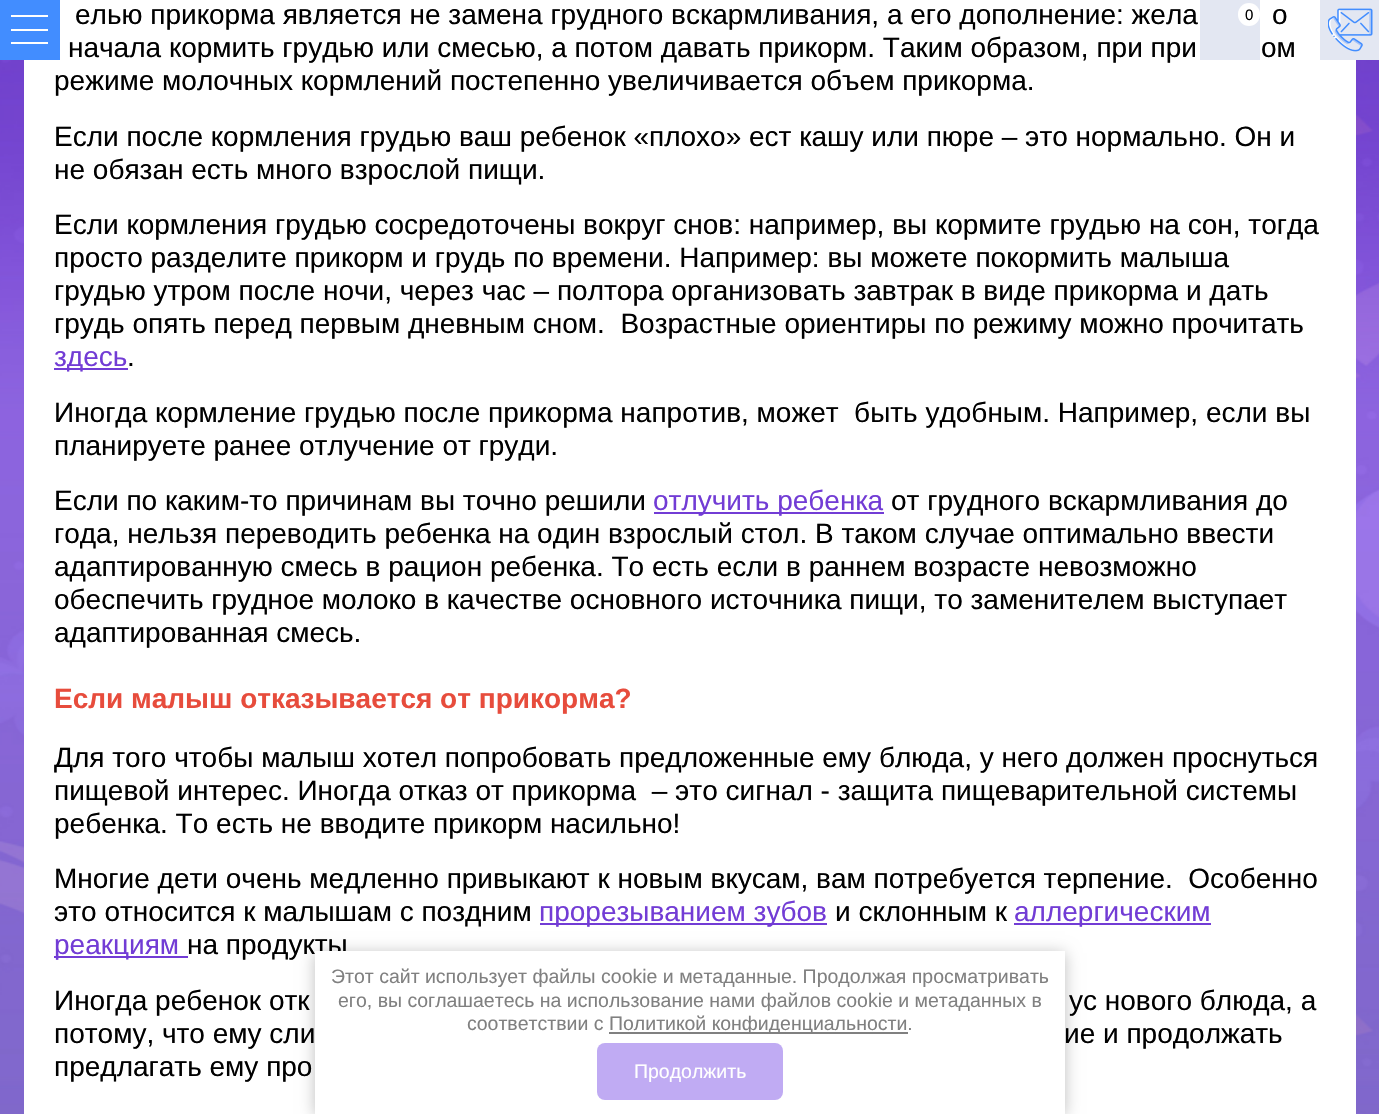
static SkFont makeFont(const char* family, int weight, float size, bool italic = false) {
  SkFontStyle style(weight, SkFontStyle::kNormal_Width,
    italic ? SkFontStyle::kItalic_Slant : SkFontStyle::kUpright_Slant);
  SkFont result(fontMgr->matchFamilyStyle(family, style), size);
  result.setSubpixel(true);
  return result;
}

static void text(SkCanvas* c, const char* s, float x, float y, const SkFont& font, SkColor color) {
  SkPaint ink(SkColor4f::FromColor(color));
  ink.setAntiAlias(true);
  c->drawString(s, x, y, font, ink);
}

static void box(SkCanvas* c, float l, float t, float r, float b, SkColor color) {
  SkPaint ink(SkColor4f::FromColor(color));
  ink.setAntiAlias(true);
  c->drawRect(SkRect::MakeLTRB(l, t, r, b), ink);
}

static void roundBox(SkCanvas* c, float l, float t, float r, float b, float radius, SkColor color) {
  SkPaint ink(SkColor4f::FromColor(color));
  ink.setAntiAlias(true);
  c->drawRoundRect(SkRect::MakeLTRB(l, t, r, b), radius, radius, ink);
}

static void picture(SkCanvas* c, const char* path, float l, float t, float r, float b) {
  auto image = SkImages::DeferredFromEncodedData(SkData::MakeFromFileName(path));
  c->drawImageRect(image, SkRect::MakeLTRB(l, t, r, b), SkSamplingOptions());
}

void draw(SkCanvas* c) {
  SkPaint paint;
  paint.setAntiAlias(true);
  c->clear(0xffffffff);
  box(c, 0, 0, 60, 60, 0xff428dff);
  box(c, 11, 15, 48, 17, 0xffffffff);
  box(c, 11, 29, 48, 31, 0xffffffff);
  box(c, 11, 42, 48, 44, 0xffffffff);
  picture(c, "img_01.png", 0, 60, 1379, 1114);
  box(c, 24, 60, 1356, 1114, 0xffffffff);
  SkFont face1 = makeFont("Liberation Sans", 400, 28);
  text(c, "елью прикорма является не замена грудного вскармливания, а его дополнение: жела", 75, 24, face1, 0xff000000);
  text(c, "о", 1272, 24, face1, 0xff000000);
  text(c, "начала кормить грудью или смесью, а потом давать прикорм. Таким образом, при при", 68, 57, face1, 0xff000000);
  text(c, "ом", 1261, 57, face1, 0xff000000);
  text(c, "режиме молочных кормлений постепенно увеличивается объем прикорма.", 54, 90, face1, 0xff000000);
  text(c, "Если после кормления грудью ваш ребенок «плохо» ест кашу или пюре – это нормально. Он и", 54, 146, face1, 0xff000000);
  text(c, "не обязан есть много взрослой пищи.", 54, 179, face1, 0xff000000);
  text(c, "Если кормления грудью сосредоточены вокруг снов: например, вы кормите грудью на сон, тогда", 54, 234, face1, 0xff000000);
  text(c, "просто разделите прикорм и грудь по времени. Например: вы можете покормить малыша", 54, 267, face1, 0xff000000);
  text(c, "грудью утром после ночи, через час – полтора организовать завтрак в виде прикорма и дать", 54, 300, face1, 0xff000000);
  text(c, "грудь опять перед первым дневным сном.  Возрастные ориентиры по режиму можно прочитать", 54, 333, face1, 0xff000000);
  box(c, 54, 368, 128, 370, 0xff723cd5);
  text(c, "здесь", 54, 366, face1, 0xff723cd5);
  text(c, ".", 127, 366, face1, 0xff000000);
  text(c, "Иногда кормление грудью после прикорма напротив, может  быть удобным. Например, если вы", 54, 422, face1, 0xff000000);
  text(c, "планируете ранее отлучение от груди.", 54, 455, face1, 0xff000000);
  text(c, "Если по каким-то причинам вы точно решили", 54, 510, face1, 0xff000000);
  box(c, 654, 512, 884, 514, 0xff723cd5);
  text(c, "отлучить ребенка", 653, 510, face1, 0xff723cd5);
  text(c, "от грудного вскармливания до", 891, 510, face1, 0xff000000);
  text(c, "года, нельзя переводить ребенка на один взрослый стол. В таком случае оптимально ввести", 54, 543, face1, 0xff000000);
  text(c, "адаптированную смесь в рацион ребенка. То есть если в раннем возрасте невозможно", 54, 576, face1, 0xff000000);
  text(c, "обеспечить грудное молоко в качестве основного источника пищи, то заменителем выступает", 54, 609, face1, 0xff000000);
  text(c, "адаптированная смесь.", 54, 642, face1, 0xff000000);
  SkFont face2 = makeFont("Liberation Sans", 700, 28);
  text(c, "Если малыш отказывается от прикорма?", 54, 708, face2, 0xffe74c3c);
  text(c, "Для того чтобы малыш хотел попробовать предложенные ему блюда, у него должен проснуться", 54, 767, face1, 0xff000000);
  text(c, "пищевой интерес. Иногда отказ от прикорма  – это сигнал - защита пищеварительной системы", 54, 800, face1, 0xff000000);
  text(c, "ребенка. То есть не вводите прикорм насильно!", 54, 833, face1, 0xff000000);
  text(c, "Многие дети очень медленно привыкают к новым вкусам, вам потребуется терпение.  Особенно", 54, 888, face1, 0xff000000);
  text(c, "это относится к малышам с поздним", 54, 921, face1, 0xff000000);
  box(c, 540, 923, 827, 925, 0xff723cd5);
  text(c, "прорезыванием зубов", 539, 921, face1, 0xff723cd5);
  text(c, "и склонным к", 835, 921, face1, 0xff000000);
  box(c, 1014, 923, 1211, 925, 0xff723cd5);
  text(c, "аллергическим", 1014, 921, face1, 0xff723cd5);
  box(c, 54, 956, 188, 958, 0xff723cd5);
  text(c, "реакциям", 54, 954, face1, 0xff723cd5);
  text(c, "на продукты", 187, 954, face1, 0xff000000);
  text(c, "Иногда ребенок отк", 54, 1010, face1, 0xff000000);
  text(c, "ус нового блюда, а", 1069, 1010, face1, 0xff000000);
  text(c, "потому, что ему сли", 54, 1043, face1, 0xff000000);
  text(c, "ие и продолжать", 1064, 1043, face1, 0xff000000);
  text(c, "предлагать ему про", 54, 1076, face1, 0xff000000);
  box(c, 1200, 0, 1260, 60, 0xffe3e7f2);
  roundBox(c, 1238, 3, 1260, 26, 11, 0xffffffff);
  SkFont face3 = makeFont("Liberation Sans", 400, 15);
  text(c, "0", 1245, 20, face3, 0xff000000);
  box(c, 1320, 0, 1379, 60, 0xffe3e7f2);
  picture(c, "img_02.png", 1328, 8, 1373, 52);
  paint.setColor(0x40000000);
  paint.setMaskFilter(SkMaskFilter::MakeBlur(kNormal_SkBlurStyle, 7.5f));
  c->drawRect(SkRect::MakeLTRB(315, 953, 1065, 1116), paint);
  paint.setMaskFilter(nullptr);
  box(c, 315, 951, 1065, 1114, 0xffffffff);
  SkFont face4 = makeFont("Liberation Sans", 400, 19.5f);
  text(c, "Этот сайт использует файлы cookie и метаданные. Продолжая просматривать", 331, 983, face4, 0xff808080);
  text(c, "его, вы соглашаетесь на использование нами файлов cookie и метаданных в", 338, 1007, face4, 0xff808080);
  text(c, "соответствии с", 467, 1030, face4, 0xff808080);
  box(c, 609, 1032, 908, 1034, 0xff808080);
  text(c, "Политикой конфиденциальности.", 609, 1030, face4, 0xff808080);
  roundBox(c, 597, 1043, 783, 1100, 8, 0xffc0abf3);
  text(c, "Продолжить", 634, 1078, face4, 0xffffffff);
}
